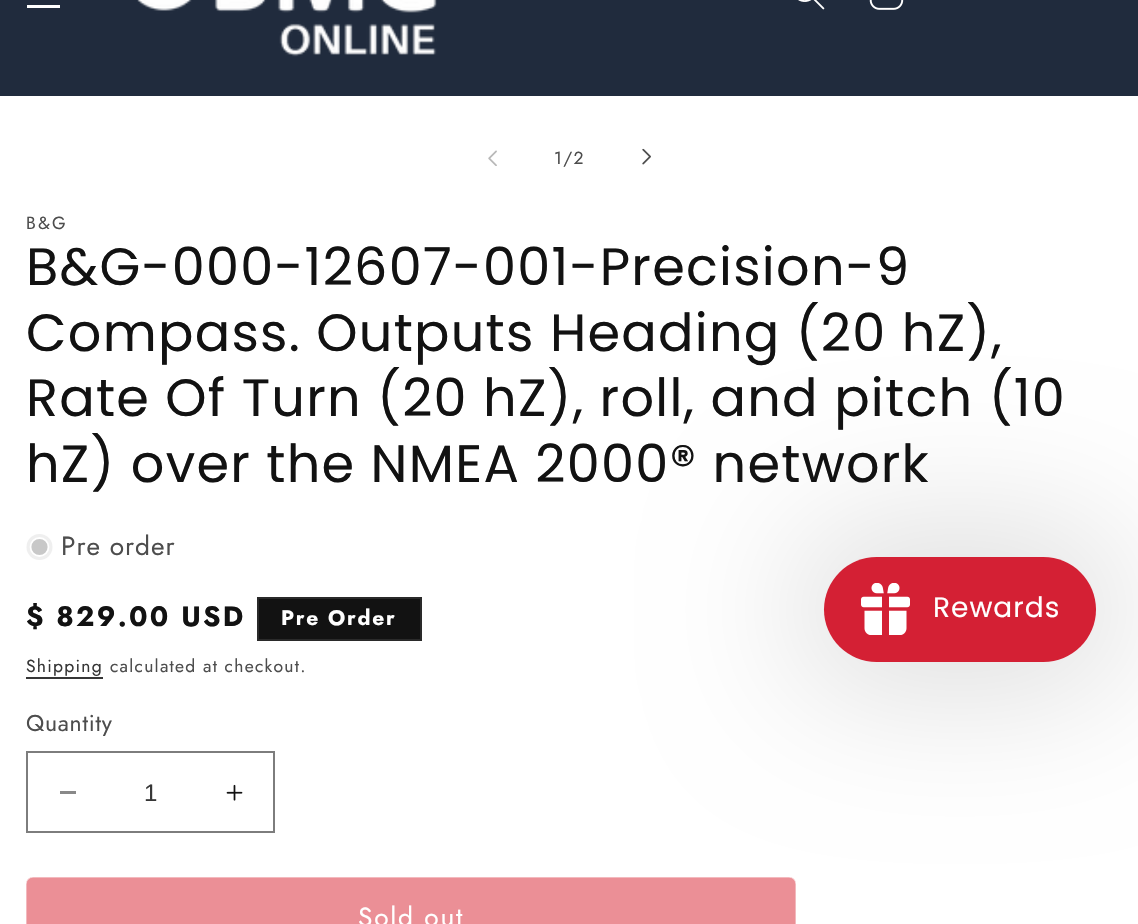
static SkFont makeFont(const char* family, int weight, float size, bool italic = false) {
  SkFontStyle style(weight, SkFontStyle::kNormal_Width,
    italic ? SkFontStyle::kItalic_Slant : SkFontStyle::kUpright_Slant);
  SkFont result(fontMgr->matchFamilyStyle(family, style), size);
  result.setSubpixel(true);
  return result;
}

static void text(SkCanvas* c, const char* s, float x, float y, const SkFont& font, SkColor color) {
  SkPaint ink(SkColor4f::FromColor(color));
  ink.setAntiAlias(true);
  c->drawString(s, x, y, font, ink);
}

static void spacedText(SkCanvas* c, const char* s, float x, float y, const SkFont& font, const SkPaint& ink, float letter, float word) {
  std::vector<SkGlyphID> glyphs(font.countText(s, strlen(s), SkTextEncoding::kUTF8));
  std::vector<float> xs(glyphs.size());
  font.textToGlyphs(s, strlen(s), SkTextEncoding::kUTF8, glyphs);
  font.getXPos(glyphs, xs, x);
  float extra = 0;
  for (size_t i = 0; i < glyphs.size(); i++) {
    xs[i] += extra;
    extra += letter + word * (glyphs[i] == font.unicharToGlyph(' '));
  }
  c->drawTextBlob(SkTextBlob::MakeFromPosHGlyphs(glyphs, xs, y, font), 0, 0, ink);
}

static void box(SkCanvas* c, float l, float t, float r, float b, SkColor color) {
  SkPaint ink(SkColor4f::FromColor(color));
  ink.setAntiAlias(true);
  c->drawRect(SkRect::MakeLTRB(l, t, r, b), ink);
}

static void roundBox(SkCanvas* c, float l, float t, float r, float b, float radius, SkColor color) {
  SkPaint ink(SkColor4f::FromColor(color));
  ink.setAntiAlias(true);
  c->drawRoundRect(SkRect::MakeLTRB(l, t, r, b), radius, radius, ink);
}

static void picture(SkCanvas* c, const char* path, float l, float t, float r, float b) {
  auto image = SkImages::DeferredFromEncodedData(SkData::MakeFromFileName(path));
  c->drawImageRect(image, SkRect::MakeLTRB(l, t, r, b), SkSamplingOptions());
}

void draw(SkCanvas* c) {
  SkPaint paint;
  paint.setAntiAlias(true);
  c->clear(0xffffffff);
  box(c, 0, 0, 1138, 96, 0xff202b3d);
  box(c, 27, 5, 60, 8, 0xffffffff);
  picture(c, "img_01.png", 137, 0, 437, 57);
  picture(c, "img_02.png", 798, 0, 825, 10);
  picture(c, "img_03.png", 869, 0, 904, 10);
  picture(c, "img_04.png", 488, 150, 497, 166);
  SkFont face1 = makeFont("Jost", 400, 17.5f);
  paint.setColor(0xff4d4d4d);
  spacedText(c, "1/2", 554, 164, face1, paint, 1.25f, 0);
  picture(c, "img_05.png", 642, 148, 651, 165);
  spacedText(c, "B&G", 26, 229, face1, paint, 2.25f, 0);
  SkFont face2 = makeFont("Poppins", 400, 52.5f);
  paint.setColor(0xff121212);
  spacedText(c, "B&G-000-12607-001-Precision-9", 26, 285, face2, paint, 1.25f, 0);
  spacedText(c, "Compass. Outputs Heading (20 hZ),", 26, 351, face2, paint, 1.25f, 0);
  spacedText(c, "Rate Of Turn (20 hZ), roll, and pitch (10", 26, 416, face2, paint, 1.25f, 0);
  spacedText(c, "hZ) over the NMEA 2000® network", 26, 482, face2, paint, 1.25f, 0);
  paint.setColor(0xffefefef);
  c->drawCircle(39.5f, 547, 13, paint);
  paint.setColor(0xffc8c8c8);
  c->drawCircle(39.5f, 547, 9, paint);
  paint.setStyle(SkPaint::kStroke_Style);
  paint.setStrokeWidth(1.8f);
  paint.setColor(0xffffffff);
  c->drawCircle(39.5f, 547, 9, paint);
  SkFont face3 = makeFont("Jost", 400, 26.25f);
  paint.setStyle(SkPaint::kFill_Style);
  paint.setColor(0xff4d4d4d);
  spacedText(c, "Pre order", 61, 555, face3, paint, 1, 0);
  SkFont face4 = makeFont("Jost", 700, 28);
  paint.setColor(0xff121212);
  spacedText(c, "$ 829.00 USD", 26, 626, face4, paint, 2.25f, 0);
  c->drawRect(SkRect::MakeLTRB(258, 598, 421, 640), paint);
  paint.setStyle(SkPaint::kStroke_Style);
  paint.setStrokeWidth(2);
  paint.setColor(0xff2a2a2a);
  c->drawRect(SkRect::MakeLTRB(258, 598, 421, 640), paint);
  SkFont face5 = makeFont("Jost", 700, 21);
  paint.setStyle(SkPaint::kFill_Style);
  paint.setColor(0xffffffff);
  spacedText(c, "Pre Order", 281, 625, face5, paint, 1.75f, 0);
  paint.setColor(0xff363636);
  spacedText(c, "Shipping", 26, 672, face1, paint, 1.25f, 0);
  box(c, 26, 677, 103, 679, 0xff363636);
  paint.setColor(0xff4d4d4d);
  spacedText(c, "calculated at checkout.", 110, 672, face1, paint, 1.25f, 0);
  SkFont face6 = makeFont("Jost", 400, 23);
  spacedText(c, "Quantity", 26, 731, face6, paint, 0.75f, 0);
  box(c, 60, 791, 76, 794, 0xff898989);
  picture(c, "img_06.png", 226, 784, 243, 801);
  paint.setStyle(SkPaint::kStroke_Style);
  paint.setColor(0xff7d7d7d);
  c->drawRect(SkRect::MakeLTRB(27, 752, 274, 832), paint);
  SkFont face7 = makeFont("Liberation Sans", 400, 24);
  text(c, "1", 144, 801, face7, 0xff363636);
  roundBox(c, 26, 877, 796, 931, 7, 0xffeb8f96);
  paint.setStrokeWidth(0.5f);
  paint.setColor(0xffffffff);
  c->drawRoundRect(SkRect::MakeLTRB(26.25f, 877.25f, 795.75f, 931.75f), 6.75f, 6.75f, paint);
  paint.setStyle(SkPaint::kFill_Style);
  spacedText(c, "Sold out", 358, 926, face3, paint, 1.75f, 0);
  paint.setColor(0x1f000000);
  paint.setMaskFilter(SkMaskFilter::MakeBlur(kNormal_SkBlurStyle, 70));
  c->drawRoundRect(SkRect::MakeLTRB(789, 522, 1131, 697), 87.5f, 87.5f, paint);
  paint.setMaskFilter(nullptr);
  roundBox(c, 824, 557, 1096, 662, 52.5f, 0xffd42034);
  picture(c, "img_07.png", 861, 583, 910, 635);
  SkFont face8 = makeFont("Poppins", 400, 28);
  paint.setColor(0xffffffff);
  spacedText(c, "Rewards", 933, 617, face8, paint, 1, 0);
}
